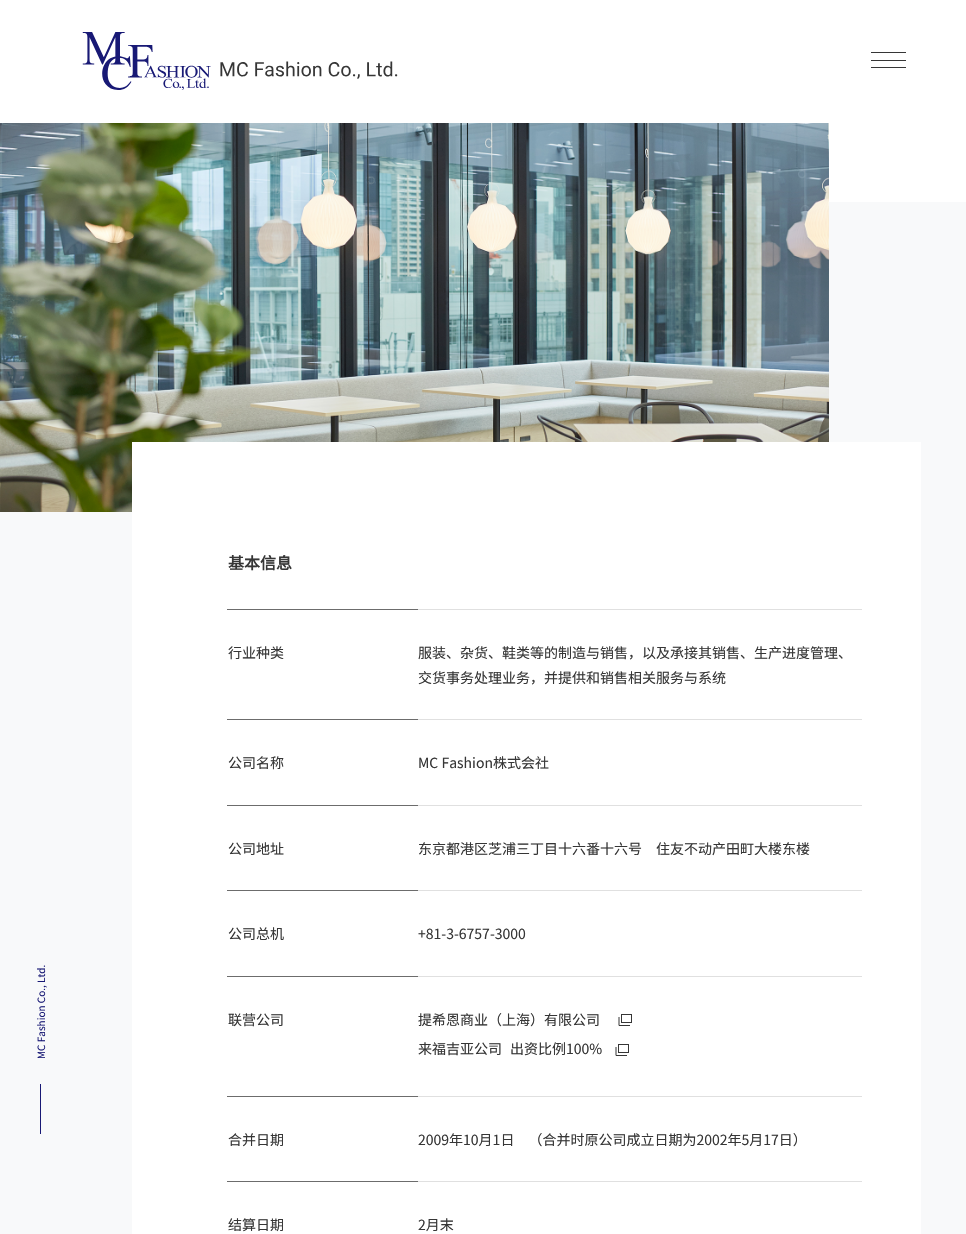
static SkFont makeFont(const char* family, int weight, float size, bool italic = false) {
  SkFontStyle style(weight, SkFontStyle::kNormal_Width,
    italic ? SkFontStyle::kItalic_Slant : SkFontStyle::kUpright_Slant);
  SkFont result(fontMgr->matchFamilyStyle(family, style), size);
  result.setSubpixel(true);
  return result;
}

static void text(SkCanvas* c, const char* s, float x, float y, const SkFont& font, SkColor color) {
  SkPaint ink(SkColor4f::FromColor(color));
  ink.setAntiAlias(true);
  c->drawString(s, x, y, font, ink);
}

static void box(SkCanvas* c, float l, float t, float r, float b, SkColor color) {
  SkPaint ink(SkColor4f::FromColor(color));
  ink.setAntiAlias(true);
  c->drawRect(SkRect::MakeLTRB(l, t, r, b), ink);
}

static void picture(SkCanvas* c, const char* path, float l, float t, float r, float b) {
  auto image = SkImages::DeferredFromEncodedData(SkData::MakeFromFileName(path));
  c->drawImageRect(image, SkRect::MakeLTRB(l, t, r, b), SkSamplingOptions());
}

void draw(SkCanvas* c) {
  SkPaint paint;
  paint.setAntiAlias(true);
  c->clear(0xffffffff);
  picture(c, "img_01.png", 82, 32, 398, 90);
  box(c, 871, 52, 906, 53, 0xff363636);
  box(c, 871, 60, 906, 61, 0xff363636);
  box(c, 871, 67, 906, 68, 0xff363636);
  box(c, 0, 202, 966, 1234, 0xfff8f9fa);
  SkFont face1 = makeFont("Noto Sans JP", 100, 10);
  c->save();
  c->rotate(-90, 45, 1059);
  text(c, "MC Fashion Co., Ltd.", 45, 1059, face1, 0xff181975);
  c->restore();
  box(c, 40, 1084, 41, 1134, 0xff181975);
  picture(c, "img_02.png", 0, 123, 829, 512);
  box(c, 132, 442, 921, 1234, 0xffffffff);
  SkFont face2 = makeFont("Noto Sans SC", 700, 16);
  text(c, "基本信息", 228, 569, face2, 0xff363636);
  box(c, 417, 609, 862, 610, 0xffe0e0e0);
  box(c, 227, 609, 418, 610, 0xff6c6c6c);
  SkFont face3 = makeFont("Noto Sans SC", 100, 14);
  text(c, "行业种类", 228, 658, face3, 0xff363636);
  text(c, "服装、杂货、鞋类等的制造与销售，以及承接其销售、生产进度管理、", 418, 658, face3, 0xff363636);
  text(c, "交货事务处理业务，并提供和销售相关服务与系统", 418, 683, face3, 0xff363636);
  box(c, 417, 719, 862, 720, 0xffe0e0e0);
  box(c, 227, 719, 418, 720, 0xff6c6c6c);
  text(c, "公司名称", 228, 768, face3, 0xff363636);
  text(c, "MC Fashion株式会社", 418, 768, face3, 0xff363636);
  box(c, 417, 805, 862, 806, 0xffe0e0e0);
  box(c, 227, 805, 418, 806, 0xff6c6c6c);
  text(c, "公司地址", 228, 854, face3, 0xff363636);
  text(c, "东京都港区芝浦三丁目十六番十六号　住友不动产田町大楼东楼", 418, 854, face3, 0xff363636);
  box(c, 417, 890, 862, 891, 0xffe0e0e0);
  box(c, 227, 890, 418, 891, 0xff6c6c6c);
  text(c, "公司总机", 228, 939, face3, 0xff363636);
  text(c, "+81-3-6757-3000", 418, 939, face3, 0xff363636);
  box(c, 417, 976, 862, 977, 0xffe0e0e0);
  box(c, 227, 976, 418, 977, 0xff6c6c6c);
  text(c, "联营公司", 228, 1025, face3, 0xff363636);
  text(c, "提希恩商业（上海）有限公司", 418, 1025, face3, 0xff363636);
  paint.setStyle(SkPaint::kStroke_Style);
  paint.setStrokeWidth(1);
  paint.setColor(0xff363636);
  c->drawRect(SkRect::MakeLTRB(621.5f, 1014.5f, 631.5f, 1022.5f), paint);
  c->drawPath(SkPathBuilder().moveTo(619, 1017).lineTo(619, 1025.5f).lineTo(630, 1025.5f).detach(), paint);
  text(c, "来福吉亚公司", 418, 1054, face3, 0xff363636);
  text(c, "出资比例100%", 510, 1054, face3, 0xff363636);
  c->drawRect(SkRect::MakeLTRB(618.5f, 1044.5f, 628.5f, 1052.5f), paint);
  c->drawPath(SkPathBuilder().moveTo(616, 1047).lineTo(616, 1055.5f).lineTo(627, 1055.5f).detach(), paint);
  box(c, 417, 1096, 862, 1097, 0xffe0e0e0);
  box(c, 227, 1096, 418, 1097, 0xff6c6c6c);
  text(c, "合并日期", 228, 1145, face3, 0xff363636);
  text(c, "2009年10月1日　（合并时原公司成立日期为2002年5月17日）", 418, 1145, face3, 0xff363636);
  box(c, 417, 1181, 862, 1182, 0xffe0e0e0);
  box(c, 227, 1181, 418, 1182, 0xff6c6c6c);
  text(c, "结算日期", 228, 1230, face3, 0xff363636);
  text(c, "2月末", 418, 1230, face3, 0xff363636);
}
